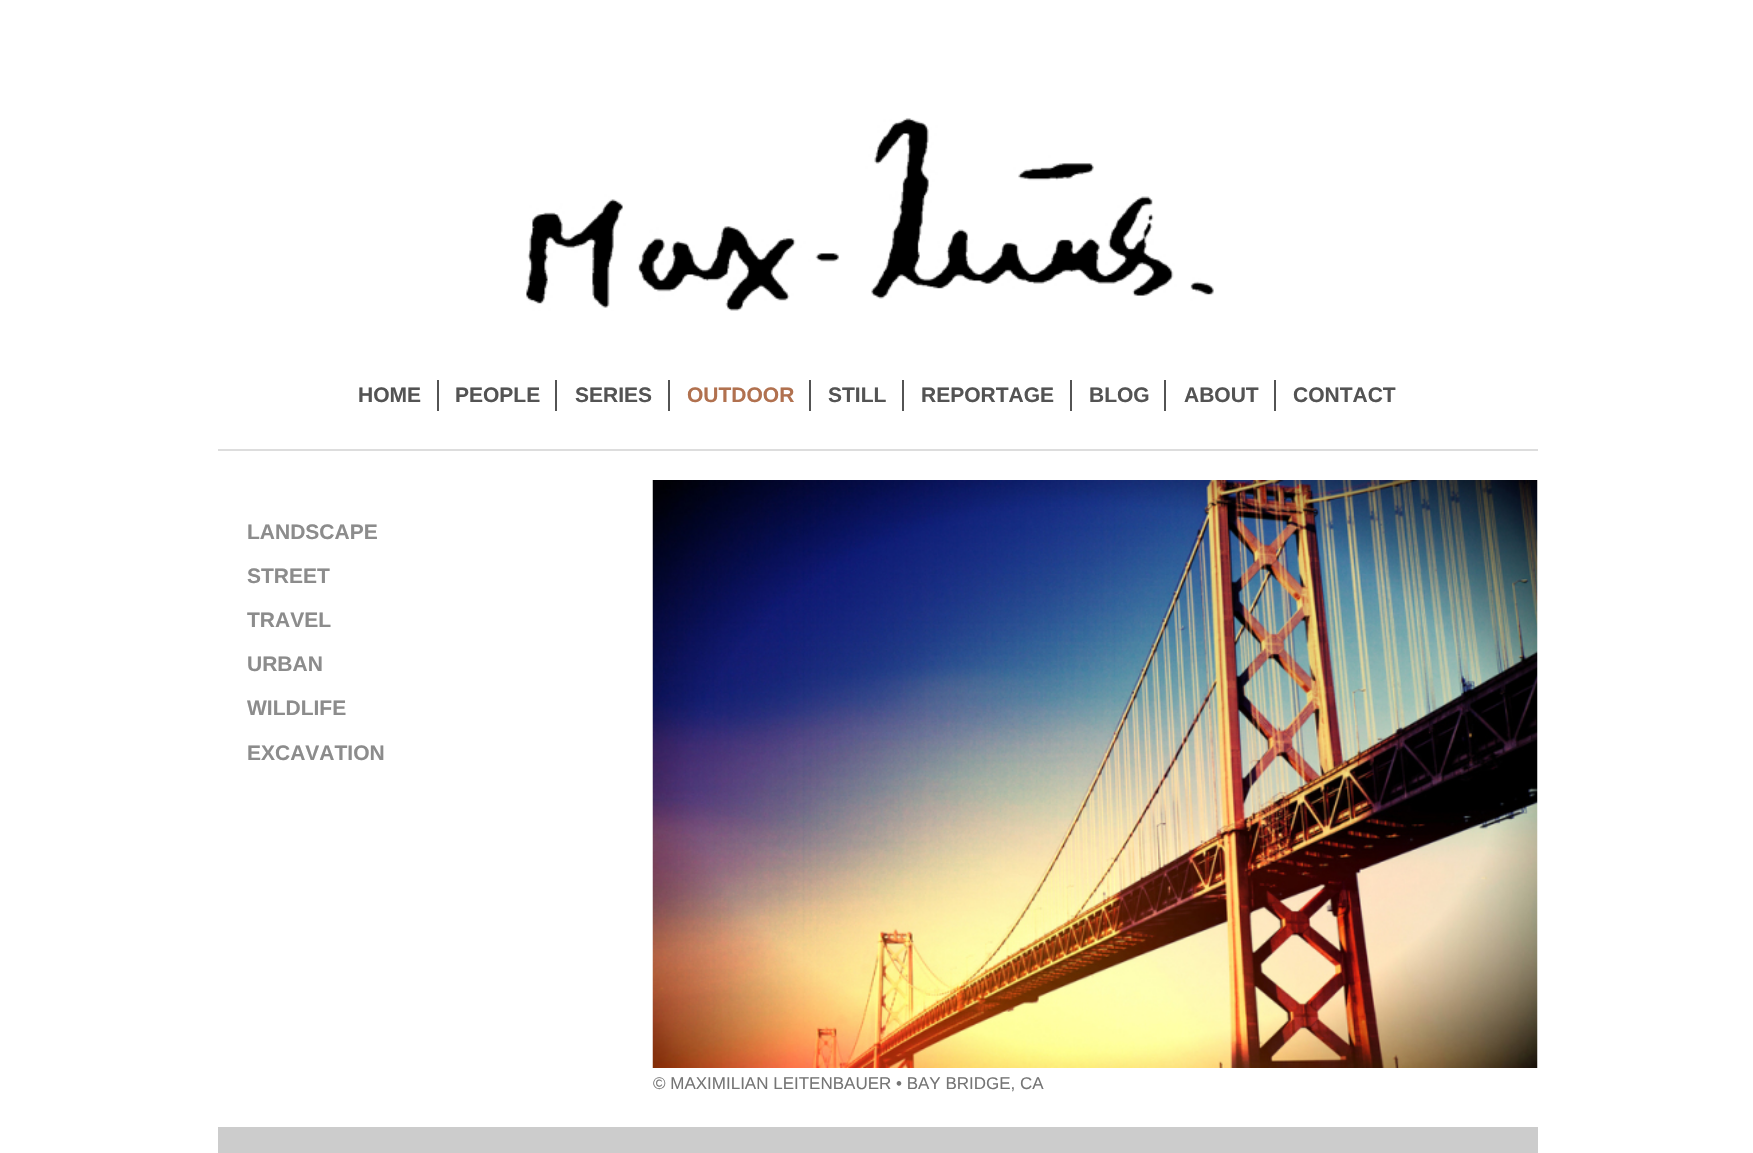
static SkFont makeFont(const char* family, int weight, float size, bool italic = false) {
  SkFontStyle style(weight, SkFontStyle::kNormal_Width,
    italic ? SkFontStyle::kItalic_Slant : SkFontStyle::kUpright_Slant);
  SkFont result(fontMgr->matchFamilyStyle(family, style), size);
  result.setSubpixel(true);
  return result;
}

static void text(SkCanvas* c, const char* s, float x, float y, const SkFont& font, SkColor color) {
  SkPaint ink(SkColor4f::FromColor(color));
  ink.setAntiAlias(true);
  c->drawString(s, x, y, font, ink);
}

static void box(SkCanvas* c, float l, float t, float r, float b, SkColor color) {
  SkPaint ink(SkColor4f::FromColor(color));
  ink.setAntiAlias(true);
  c->drawRect(SkRect::MakeLTRB(l, t, r, b), ink);
}

static void picture(SkCanvas* c, const char* path, float l, float t, float r, float b) {
  auto image = SkImages::DeferredFromEncodedData(SkData::MakeFromFileName(path));
  c->drawImageRect(image, SkRect::MakeLTRB(l, t, r, b), SkSamplingOptions());
}

void draw(SkCanvas* c) {
  SkPaint paint;
  paint.setAntiAlias(true);
  c->clear(0xffffffff);
  picture(c, "img_01.png", 526, 118, 1214, 311);
  box(c, 218, 449, 1538, 451, 0xffdddddd);
  box(c, 437, 380, 439, 411, 0xff535353);
  SkFont face1 = makeFont("Liberation Sans", 700, 21);
  text(c, "HOME", 358, 402, face1, 0xff535353);
  box(c, 555, 380, 557, 411, 0xff535353);
  text(c, "PEOPLE", 455, 402, face1, 0xff535353);
  box(c, 668, 380, 670, 411, 0xff535353);
  text(c, "SERIES", 575, 402, face1, 0xff535353);
  box(c, 809, 380, 811, 411, 0xff535353);
  text(c, "OUTDOOR", 687, 402, face1, 0xffb1714f);
  box(c, 902, 380, 904, 411, 0xff535353);
  text(c, "STILL", 828, 402, face1, 0xff535353);
  box(c, 1070, 380, 1072, 411, 0xff535353);
  text(c, "REPORTAGE", 921, 402, face1, 0xff535353);
  box(c, 1164, 380, 1166, 411, 0xff535353);
  text(c, "BLOG", 1089, 402, face1, 0xff535353);
  box(c, 1274, 380, 1276, 411, 0xff535353);
  text(c, "ABOUT", 1184, 402, face1, 0xff535353);
  text(c, "CONTACT", 1293, 402, face1, 0xff535353);
  text(c, "LANDSCAPE", 247, 539, face1, 0xff8c8c8c);
  text(c, "STREET", 247, 583, face1, 0xff8c8c8c);
  text(c, "TRAVEL", 247, 627, face1, 0xff8c8c8c);
  text(c, "URBAN", 247, 671, face1, 0xff8c8c8c);
  text(c, "WILDLIFE", 247, 715, face1, 0xff8c8c8c);
  text(c, "EXCAVATION", 247, 760, face1, 0xff8c8c8c);
  picture(c, "img_02.png", 652, 480, 1538, 1068);
  SkFont face2 = makeFont("Liberation Sans", 400, 17);
  text(c, "© MAXIMILIAN LEITENBAUER • BAY BRIDGE, CA", 653, 1089, face2, 0xff757575);
  box(c, 218, 1127, 1538, 1153, 0xffcccccc);
}
